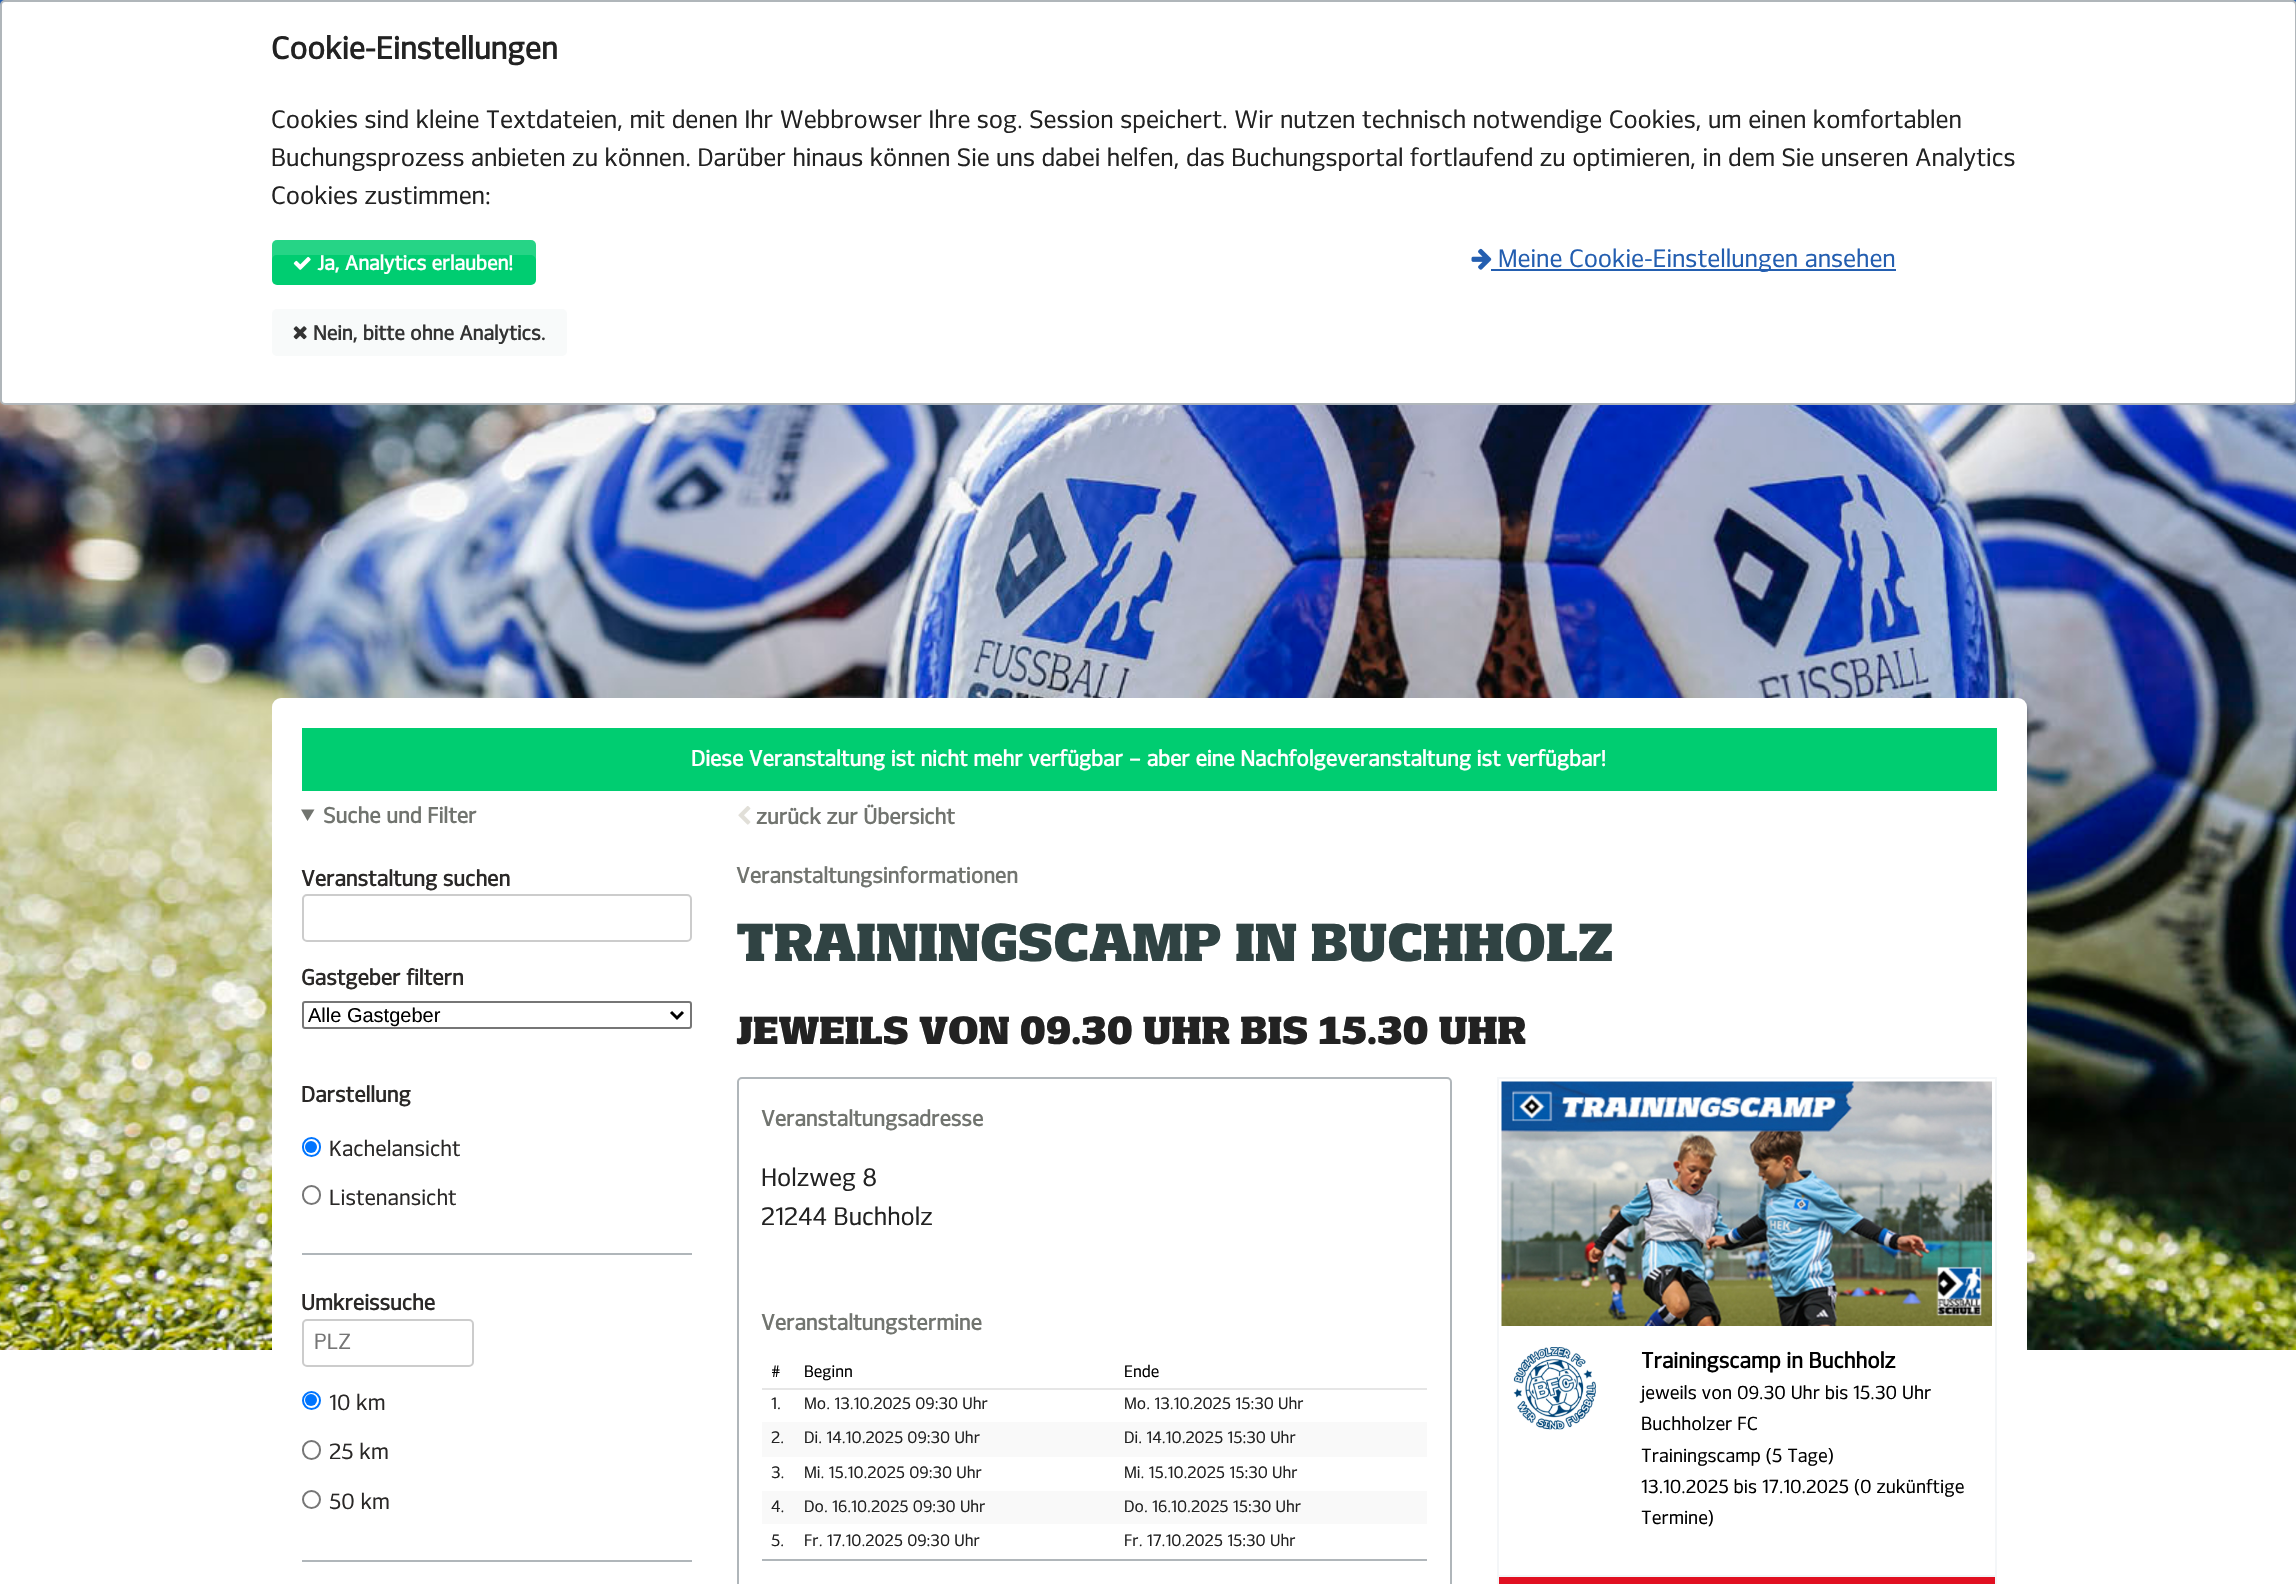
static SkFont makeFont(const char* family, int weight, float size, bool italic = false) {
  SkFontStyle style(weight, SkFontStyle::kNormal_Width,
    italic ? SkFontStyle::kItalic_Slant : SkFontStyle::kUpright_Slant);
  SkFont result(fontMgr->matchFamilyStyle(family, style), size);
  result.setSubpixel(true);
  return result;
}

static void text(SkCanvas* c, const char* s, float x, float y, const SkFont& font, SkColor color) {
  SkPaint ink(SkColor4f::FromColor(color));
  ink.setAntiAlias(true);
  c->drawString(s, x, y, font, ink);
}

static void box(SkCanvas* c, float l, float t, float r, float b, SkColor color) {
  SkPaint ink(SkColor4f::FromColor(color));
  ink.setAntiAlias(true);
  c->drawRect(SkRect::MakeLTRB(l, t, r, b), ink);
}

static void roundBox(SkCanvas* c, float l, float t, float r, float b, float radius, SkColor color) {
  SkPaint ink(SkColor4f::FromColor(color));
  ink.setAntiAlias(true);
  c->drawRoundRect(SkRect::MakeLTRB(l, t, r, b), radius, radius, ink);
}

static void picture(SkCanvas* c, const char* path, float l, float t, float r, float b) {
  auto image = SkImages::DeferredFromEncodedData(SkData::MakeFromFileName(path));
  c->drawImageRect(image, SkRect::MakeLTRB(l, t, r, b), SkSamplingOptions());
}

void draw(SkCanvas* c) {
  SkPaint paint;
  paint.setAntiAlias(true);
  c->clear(0xffffffff);
  picture(c, "img_01.png", 0, 400, 2296, 1350);
  box(c, 0, 0, 2296, 5, 0xff235eb0);
  paint.setColor(0xffffffff);
  c->drawRoundRect(SkRect::MakeLTRB(1, 1, 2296, 404), 4, 4, paint);
  paint.setStyle(SkPaint::kStroke_Style);
  paint.setStrokeWidth(2);
  paint.setColor(0xffb0b6ba);
  c->drawRoundRect(SkRect::MakeLTRB(1, 1, 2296, 404), 4, 4, paint);
  SkFont face1 = makeFont("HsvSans", 700, 30);
  text(c, "Cookie-Einstellungen", 271, 59, face1, 0xff222222);
  SkFont face2 = makeFont("HsvSans", 400, 24);
  text(c, "Cookies sind kleine Textdateien, mit denen Ihr Webbrowser Ihre sog. Session speichert. Wir nutzen technisch notwendige Cookies, um einen komfortablen", 271, 128, face2, 0xff222222);
  text(c, "Buchungsprozess anbieten zu können. Darüber hinaus können Sie uns dabei helfen, das Buchungsportal fortlaufend zu optimieren, in dem Sie unseren Analytics", 271, 166, face2, 0xff222222);
  text(c, "Cookies zustimmen:", 271, 204, face2, 0xff222222);
  roundBox(c, 272, 240, 536, 285, 5, 0xff00cd71);
  paint.setStyle(SkPaint::kFill_Style);
  paint.setColor(0x26ffffff);
  c->drawPath(SkPathBuilder().moveTo(276, 255).lineTo(531, 255).cubicTo(533, 255, 536, 257, 536, 260).lineTo(536, 245).cubicTo(536, 242, 534, 240, 531, 240).lineTo(277, 240).cubicTo(274, 240, 272, 242, 272, 245).lineTo(272, 260).cubicTo(272, 257, 274, 255, 276, 255).close().detach(), paint);
  picture(c, "img_02.png", 293, 256, 311, 270);
  SkFont face3 = makeFont("HsvSans", 700, 19.5f);
  text(c, "Ja, Analytics erlauben!", 317, 270, face3, 0xffffffff);
  roundBox(c, 272, 309, 567, 356, 5, 0xfff8fafa);
  picture(c, "img_03.png", 293, 326, 307, 340);
  text(c, "Nein, bitte ohne Analytics.", 313, 340, face3, 0xff333333);
  picture(c, "img_04.png", 1471, 248, 1492, 270);
  box(c, 1491, 269, 1896, 271, 0xff235eb0);
  text(c, "Meine Cookie-Einstellungen ansehen", 1498, 267, face2, 0xff235eb0);
  roundBox(c, 272, 698, 2027, 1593, 9, 0xffffffff);
  box(c, 302, 728, 1997, 791, 0xff00cd71);
  SkFont face4 = makeFont("HsvSans", 700, 21);
  text(c, "Diese Veranstaltung ist nicht mehr verfügbar – aber eine Nachfolgeveranstaltung ist verfügbar!", 691, 766, face4, 0xffffffff);
  paint.setColor(0xff71746f);
  c->drawPath(SkPathBuilder().moveTo(301, 809.5f).lineTo(314.5f, 809.5f).lineTo(307.5f, 821).close().detach(), paint);
  text(c, "Suche und Filter", 323, 823, face4, 0xff71746f);
  text(c, "Veranstaltung suchen", 301, 886, face4, 0xff2a2827);
  paint.setStyle(SkPaint::kStroke_Style);
  paint.setColor(0xffcccccc);
  c->drawRoundRect(SkRect::MakeLTRB(303, 895, 691, 941), 4, 4, paint);
  text(c, "Gastgeber filtern", 301, 985, face4, 0xff2a2827);
  paint.setColor(0xff767676);
  c->drawRoundRect(SkRect::MakeLTRB(303, 1002, 691, 1028), 2, 2, paint);
  paint.setStrokeWidth(3);
  paint.setColor(0xff000000);
  c->drawPath(SkPathBuilder().moveTo(671, 1012).lineTo(677, 1018).lineTo(683, 1012).detach(), paint);
  SkFont face5 = makeFont("Liberation Sans", 400, 20);
  text(c, "Alle Gastgeber", 308, 1022, face5, 0xff000000);
  text(c, "Darstellung", 301, 1102, face4, 0xff2a2827);
  paint.setStrokeWidth(2);
  paint.setColor(0xff0075ff);
  c->drawRoundRect(SkRect::MakeLTRB(303, 1138, 320, 1156), 8.5f, 8.5f, paint);
  paint.setStyle(SkPaint::kFill_Style);
  c->drawCircle(311, 1147, 6, paint);
  SkFont face6 = makeFont("HsvSans", 400, 21);
  text(c, "Kachelansicht", 329, 1156, face6, 0xff2a2827);
  paint.setStyle(SkPaint::kStroke_Style);
  paint.setColor(0xff767676);
  c->drawRoundRect(SkRect::MakeLTRB(303, 1186, 320, 1204), 8.5f, 8.5f, paint);
  text(c, "Listenansicht", 329, 1205, face6, 0xff2a2827);
  box(c, 302, 1253, 692, 1255, 0xffb0b6ba);
  text(c, "Umkreissuche", 301, 1310, face4, 0xff2a2827);
  paint.setColor(0xffcccccc);
  c->drawRoundRect(SkRect::MakeLTRB(303, 1320, 473, 1366), 4, 4, paint);
  text(c, "PLZ", 314, 1349, face6, 0xff757575);
  paint.setColor(0xff0075ff);
  c->drawCircle(311.5f, 1400.5f, 8.5f, paint);
  paint.setStyle(SkPaint::kFill_Style);
  c->drawCircle(311, 1400, 6, paint);
  text(c, "10 km", 329, 1410, face6, 0xff2a2827);
  paint.setStyle(SkPaint::kStroke_Style);
  paint.setColor(0xff767676);
  c->drawRoundRect(SkRect::MakeLTRB(303, 1441, 320, 1459), 8.5f, 8.5f, paint);
  text(c, "25 km", 329, 1459, face6, 0xff2a2827);
  c->drawCircle(311.5f, 1499.5f, 8.5f, paint);
  text(c, "50 km", 329, 1509, face6, 0xff2a2827);
  box(c, 302, 1560, 692, 1562, 0xffb0b6ba);
  picture(c, "img_05.png", 738, 806, 751, 825);
  text(c, "zurück zur Übersicht", 756, 824, face4, 0xff71746f);
  text(c, "Veranstaltungsinformationen", 736, 883, face4, 0xff71746f);
  SkFont face7 = makeFont("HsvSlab", 800, 51);
  text(c, "TRAININGSCAMP IN BUCHHOLZ", 736, 961, face7, 0xff304343);
  SkFont face8 = makeFont("HsvSlab", 800, 37.5f);
  text(c, "JEWEILS VON 09.30 UHR BIS 15.30 UHR", 736, 1044, face8, 0xff222222);
  paint.setColor(0xffb0b6ba);
  c->drawRoundRect(SkRect::MakeLTRB(738, 1078, 1451, 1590), 4, 4, paint);
  text(c, "Veranstaltungsadresse", 761, 1126, face4, 0xff71746f);
  text(c, "Holzweg 8", 761, 1186, face2, 0xff222222);
  text(c, "21244 Buchholz", 761, 1225, face2, 0xff222222);
  text(c, "Veranstaltungstermine", 761, 1330, face4, 0xff71746f);
  box(c, 762, 1559, 1427, 1561, 0xffb0b6ba);
  box(c, 762, 1388, 1427, 1390, 0xffe6e6e6);
  SkFont face9 = makeFont("HsvSans", 400, 15.75f);
  text(c, "#", 771, 1377, face9, 0xff000000);
  text(c, "Beginn", 804, 1377, face9, 0xff000000);
  text(c, "Ende", 1124, 1377, face9, 0xff000000);
  text(c, "1.", 771, 1409, face9, 0xff222222);
  text(c, "Mo. 13.10.2025 09:30 Uhr", 804, 1409, face9, 0xff222222);
  text(c, "Mo. 13.10.2025 15:30 Uhr", 1124, 1409, face9, 0xff222222);
  box(c, 762, 1422, 1427, 1457, 0xfff9f9f9);
  text(c, "2.", 771, 1443, face9, 0xff222222);
  text(c, "Di. 14.10.2025 09:30 Uhr", 804, 1443, face9, 0xff222222);
  text(c, "Di. 14.10.2025 15:30 Uhr", 1124, 1443, face9, 0xff222222);
  text(c, "3.", 771, 1478, face9, 0xff222222);
  text(c, "Mi. 15.10.2025 09:30 Uhr", 804, 1478, face9, 0xff222222);
  text(c, "Mi. 15.10.2025 15:30 Uhr", 1124, 1478, face9, 0xff222222);
  box(c, 762, 1491, 1427, 1524, 0xfff9f9f9);
  text(c, "4.", 771, 1512, face9, 0xff222222);
  text(c, "Do. 16.10.2025 09:30 Uhr", 804, 1512, face9, 0xff222222);
  text(c, "Do. 16.10.2025 15:30 Uhr", 1124, 1512, face9, 0xff222222);
  text(c, "5.", 771, 1546, face9, 0xff222222);
  text(c, "Fr. 17.10.2025 09:30 Uhr", 804, 1546, face9, 0xff222222);
  text(c, "Fr. 17.10.2025 15:30 Uhr", 1124, 1546, face9, 0xff222222);
  paint.setColor(0xfff4f6f8);
  c->drawRect(SkRect::MakeLTRB(1498, 1078, 1996, 1576), paint);
  picture(c, "img_06.png", 1501, 1081, 1992, 1326);
  picture(c, "img_07.png", 1513, 1347, 1596, 1430);
  text(c, "Trainingscamp in Buchholz", 1641, 1368, face4, 0xff000000);
  SkFont face10 = makeFont("HsvSans", 400, 18);
  text(c, "jeweils von 09.30 Uhr bis 15.30 Uhr", 1641, 1399, face10, 0xff000000);
  text(c, "Buchholzer FC", 1641, 1430, face10, 0xff000000);
  text(c, "Trainingscamp (5 Tage)", 1641, 1462, face10, 0xff000000);
  text(c, "13.10.2025 bis 17.10.2025 (0 zukünftige", 1641, 1493, face10, 0xff000000);
  text(c, "Termine)", 1641, 1524, face10, 0xff000000);
  box(c, 1995, 1577, 1997, 1584, 0xfff4f6f8);
  box(c, 1497, 1577, 1499, 1584, 0xfff4f6f8);
  box(c, 1499, 1577, 1995, 1584, 0xffe11021);
}
